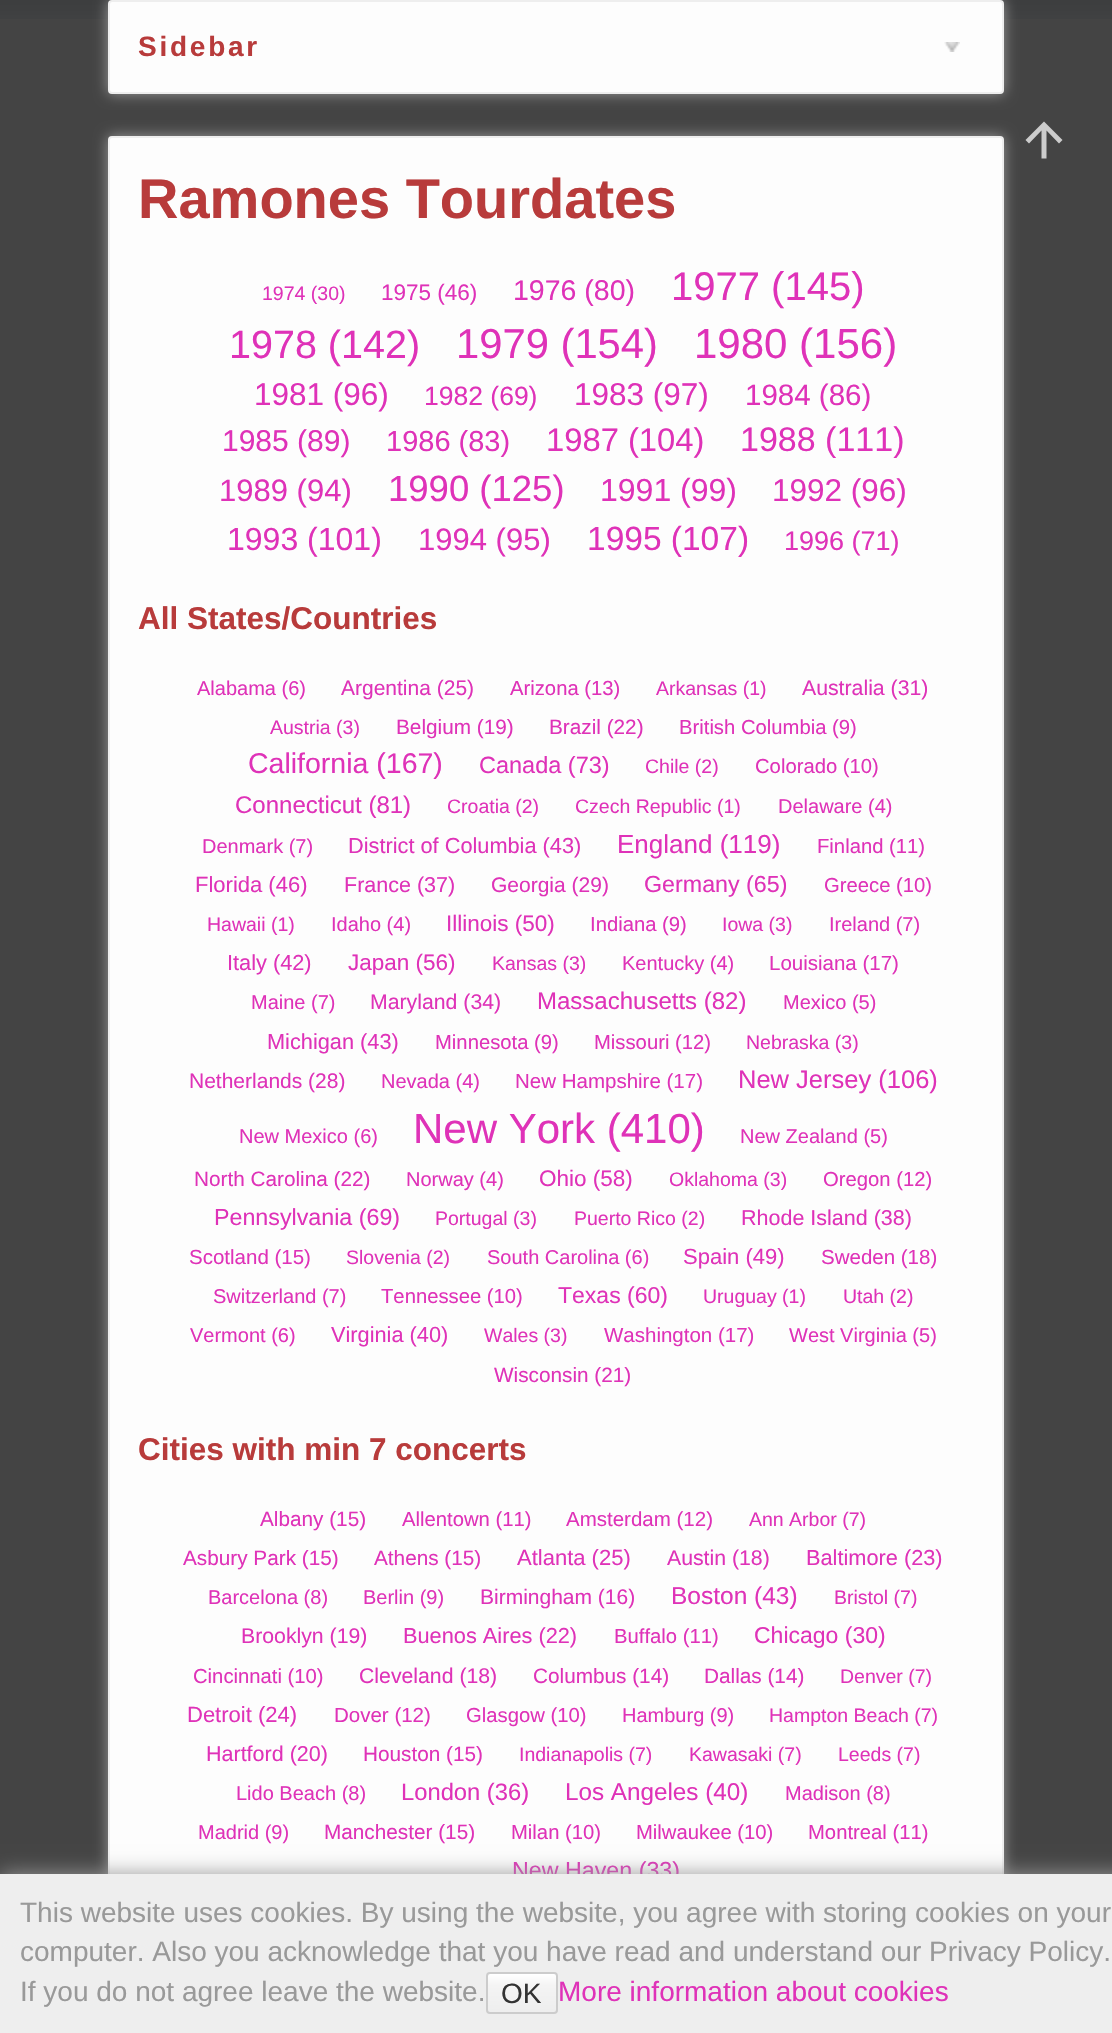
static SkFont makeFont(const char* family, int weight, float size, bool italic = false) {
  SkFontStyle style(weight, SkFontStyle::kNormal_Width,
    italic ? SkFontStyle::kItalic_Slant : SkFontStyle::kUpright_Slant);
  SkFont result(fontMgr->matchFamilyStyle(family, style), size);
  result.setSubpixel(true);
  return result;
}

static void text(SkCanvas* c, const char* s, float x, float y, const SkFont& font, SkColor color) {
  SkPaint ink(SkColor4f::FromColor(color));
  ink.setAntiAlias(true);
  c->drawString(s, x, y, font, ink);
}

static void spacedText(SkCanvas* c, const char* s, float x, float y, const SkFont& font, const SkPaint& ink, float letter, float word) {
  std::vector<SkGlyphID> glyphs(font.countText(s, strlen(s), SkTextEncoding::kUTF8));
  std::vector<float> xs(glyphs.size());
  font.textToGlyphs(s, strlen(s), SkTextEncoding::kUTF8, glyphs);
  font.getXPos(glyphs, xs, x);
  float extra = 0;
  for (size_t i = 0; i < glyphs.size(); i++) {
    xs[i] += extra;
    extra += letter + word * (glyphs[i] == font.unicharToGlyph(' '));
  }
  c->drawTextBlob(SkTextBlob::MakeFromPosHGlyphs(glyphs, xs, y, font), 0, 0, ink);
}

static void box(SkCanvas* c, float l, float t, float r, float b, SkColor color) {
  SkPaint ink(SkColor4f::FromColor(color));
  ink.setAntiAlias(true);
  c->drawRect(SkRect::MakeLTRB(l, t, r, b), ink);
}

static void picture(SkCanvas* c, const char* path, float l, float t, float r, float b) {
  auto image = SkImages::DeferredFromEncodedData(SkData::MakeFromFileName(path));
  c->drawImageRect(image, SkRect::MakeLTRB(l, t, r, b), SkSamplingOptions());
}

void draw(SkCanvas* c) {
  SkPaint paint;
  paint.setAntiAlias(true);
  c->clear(0xff444444);
  picture(c, "img_01.png", 0, 0, 1112, 19);
  paint.setColor(0xff999999);
  paint.setMaskFilter(SkMaskFilter::MakeBlur(kNormal_SkBlurStyle, 7));
  c->drawRoundRect(SkRect::MakeLTRB(108, 0, 1004, 94), 4, 4, paint);
  paint.setMaskFilter(nullptr);
  paint.setColor(0xfffdfdfd);
  c->drawRoundRect(SkRect::MakeLTRB(109, 1, 1003, 93), 3, 3, paint);
  paint.setStyle(SkPaint::kStroke_Style);
  paint.setStrokeWidth(2);
  paint.setColor(0xffeeeeee);
  c->drawRoundRect(SkRect::MakeLTRB(109, 1, 1003, 93), 3, 3, paint);
  SkFont face1 = makeFont("Liberation Sans", 700, 28);
  paint.setStyle(SkPaint::kFill_Style);
  paint.setColor(0xffb83b3b);
  spacedText(c, "Sidebar", 138, 56, face1, paint, 2.75f, 0);
  picture(c, "img_02.png", 944, 42, 960, 52);
  paint.setColor(0xff999999);
  paint.setMaskFilter(SkMaskFilter::MakeBlur(kNormal_SkBlurStyle, 7));
  c->drawRoundRect(SkRect::MakeLTRB(108, 136, 1004, 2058), 4, 4, paint);
  paint.setMaskFilter(nullptr);
  paint.setColor(0xffcccccc);
  c->drawPath(SkPathBuilder().moveTo(1046.5f, 158.5f).lineTo(1041.5f, 158.5f).lineTo(1041.5f, 130.5f).lineTo(1029, 143.5f).lineTo(1025.5f, 140).lineTo(1044, 121.5f).lineTo(1062.5f, 140).lineTo(1059, 143.5f).lineTo(1046.5f, 130.5f).close().detach(), paint);
  paint.setColor(0xfffdfdfd);
  c->drawRoundRect(SkRect::MakeLTRB(109, 137, 1003, 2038), 3, 3, paint);
  paint.setStyle(SkPaint::kStroke_Style);
  paint.setColor(0xffeeeeee);
  c->drawRoundRect(SkRect::MakeLTRB(109, 137, 1003, 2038), 3, 3, paint);
  SkFont face2 = makeFont("Liberation Sans", 700, 56);
  text(c, "Ramones Tourdates", 138, 218, face2, 0xffb83b3b);
  SkFont face3 = makeFont("Liberation Sans", 400, 19.5f);
  text(c, "1974 (30)", 262, 300, face3, 0xffdf32b8);
  SkFont face4 = makeFont("Liberation Sans", 400, 22.5f);
  text(c, "1975 (46)", 381, 300, face4, 0xffdf32b8);
  SkFont face5 = makeFont("Liberation Sans", 400, 28.5f);
  text(c, "1976 (80)", 513, 300, face5, 0xffdf32b8);
  SkFont face6 = makeFont("Liberation Sans", 400, 40);
  text(c, "1977 (145)", 671, 300, face6, 0xffdf32b8);
  SkFont face7 = makeFont("Liberation Sans", 400, 39.5f);
  text(c, "1978 (142)", 229, 358, face7, 0xffdf32b8);
  SkFont face8 = makeFont("Liberation Sans", 400, 41.75f);
  text(c, "1979 (154)", 456, 358, face8, 0xffdf32b8);
  SkFont face9 = makeFont("Liberation Sans", 400, 42);
  text(c, "1980 (156)", 694, 358, face9, 0xffdf32b8);
  SkFont face10 = makeFont("Liberation Sans", 400, 31.5f);
  text(c, "1981 (96)", 254, 405, face10, 0xffdf32b8);
  SkFont face11 = makeFont("Liberation Sans", 400, 26.5f);
  text(c, "1982 (69)", 424, 405, face11, 0xffdf32b8);
  text(c, "1983 (97)", 574, 405, face10, 0xffdf32b8);
  SkFont face12 = makeFont("Liberation Sans", 400, 29.5f);
  text(c, "1984 (86)", 745, 405, face12, 0xffdf32b8);
  SkFont face13 = makeFont("Liberation Sans", 400, 30);
  text(c, "1985 (89)", 222, 451, face13, 0xffdf32b8);
  SkFont face14 = makeFont("Liberation Sans", 400, 29);
  text(c, "1986 (83)", 386, 451, face14, 0xffdf32b8);
  SkFont face15 = makeFont("Liberation Sans", 400, 32.75f);
  text(c, "1987 (104)", 546, 451, face15, 0xffdf32b8);
  SkFont face16 = makeFont("Liberation Sans", 400, 34);
  text(c, "1988 (111)", 740, 451, face16, 0xffdf32b8);
  SkFont face17 = makeFont("Liberation Sans", 400, 31);
  text(c, "1989 (94)", 219, 501, face17, 0xffdf32b8);
  SkFont face18 = makeFont("Liberation Sans", 400, 36.5f);
  text(c, "1990 (125)", 388, 501, face18, 0xffdf32b8);
  SkFont face19 = makeFont("Liberation Sans", 400, 32);
  text(c, "1991 (99)", 600, 501, face19, 0xffdf32b8);
  text(c, "1992 (96)", 772, 501, face10, 0xffdf32b8);
  text(c, "1993 (101)", 227, 550, face19, 0xffdf32b8);
  text(c, "1994 (95)", 418, 550, face17, 0xffdf32b8);
  SkFont face20 = makeFont("Liberation Sans", 400, 33.5f);
  text(c, "1995 (107)", 587, 550, face20, 0xffdf32b8);
  SkFont face21 = makeFont("Liberation Sans", 400, 27);
  text(c, "1996 (71)", 784, 550, face21, 0xffdf32b8);
  SkFont face22 = makeFont("Liberation Sans", 700, 31.5f);
  text(c, "All States/Countries", 138, 629, face22, 0xffb83b3b);
  SkFont face23 = makeFont("Liberation Sans", 400, 20);
  text(c, "Alabama (6)", 197, 695, face23, 0xffdf32b8);
  SkFont face24 = makeFont("Liberation Sans", 400, 21);
  text(c, "Argentina (25)", 341, 695, face24, 0xffdf32b8);
  SkFont face25 = makeFont("Liberation Sans", 400, 20.25f);
  text(c, "Arizona (13)", 510, 695, face25, 0xffdf32b8);
  text(c, "Arkansas (1)", 656, 695, face3, 0xffdf32b8);
  SkFont face26 = makeFont("Liberation Sans", 400, 21.25f);
  text(c, "Australia (31)", 802, 695, face26, 0xffdf32b8);
  text(c, "Austria (3)", 270, 734, face3, 0xffdf32b8);
  SkFont face27 = makeFont("Liberation Sans", 400, 20.75f);
  text(c, "Belgium (19)", 396, 734, face27, 0xffdf32b8);
  text(c, "Brazil (22)", 549, 734, face27, 0xffdf32b8);
  text(c, "British Columbia (9)", 679, 734, face25, 0xffdf32b8);
  text(c, "California (167)", 248, 773, face5, 0xffdf32b8);
  SkFont face28 = makeFont("Liberation Sans", 400, 23.5f);
  text(c, "Canada (73)", 479, 773, face28, 0xffdf32b8);
  text(c, "Chile (2)", 645, 773, face3, 0xffdf32b8);
  text(c, "Colorado (10)", 755, 773, face25, 0xffdf32b8);
  SkFont face29 = makeFont("Liberation Sans", 400, 24);
  text(c, "Connecticut (81)", 235, 813, face29, 0xffdf32b8);
  text(c, "Croatia (2)", 447, 813, face3, 0xffdf32b8);
  text(c, "Czech Republic (1)", 575, 813, face3, 0xffdf32b8);
  text(c, "Delaware (4)", 778, 813, face23, 0xffdf32b8);
  text(c, "Denmark (7)", 202, 853, face23, 0xffdf32b8);
  SkFont face30 = makeFont("Liberation Sans", 400, 21.75f);
  text(c, "District of Columbia (43)", 348, 853, face30, 0xffdf32b8);
  SkFont face31 = makeFont("Liberation Sans", 400, 26);
  text(c, "England (119)", 617, 853, face31, 0xffdf32b8);
  text(c, "Finland (11)", 817, 853, face25, 0xffdf32b8);
  SkFont face32 = makeFont("Liberation Sans", 400, 22);
  text(c, "Florida (46)", 195, 892, face32, 0xffdf32b8);
  SkFont face33 = makeFont("Liberation Sans", 400, 21.5f);
  text(c, "France (37)", 344, 892, face33, 0xffdf32b8);
  text(c, "Georgia (29)", 491, 892, face24, 0xffdf32b8);
  SkFont face34 = makeFont("Liberation Sans", 400, 23.25f);
  text(c, "Germany (65)", 644, 892, face34, 0xffdf32b8);
  text(c, "Greece (10)", 824, 892, face25, 0xffdf32b8);
  text(c, "Hawaii (1)", 207, 931, face3, 0xffdf32b8);
  text(c, "Idaho (4)", 331, 931, face23, 0xffdf32b8);
  text(c, "Illinois (50)", 446, 931, face4, 0xffdf32b8);
  text(c, "Indiana (9)", 590, 931, face25, 0xffdf32b8);
  text(c, "Iowa (3)", 722, 931, face3, 0xffdf32b8);
  text(c, "Ireland (7)", 829, 931, face23, 0xffdf32b8);
  text(c, "Italy (42)", 227, 970, face30, 0xffdf32b8);
  text(c, "Japan (56)", 348, 970, face4, 0xffdf32b8);
  text(c, "Kansas (3)", 492, 970, face3, 0xffdf32b8);
  text(c, "Kentucky (4)", 622, 970, face23, 0xffdf32b8);
  SkFont face35 = makeFont("Liberation Sans", 400, 20.5f);
  text(c, "Louisiana (17)", 769, 970, face35, 0xffdf32b8);
  text(c, "Maine (7)", 251, 1009, face23, 0xffdf32b8);
  text(c, "Maryland (34)", 370, 1009, face26, 0xffdf32b8);
  text(c, "Massachusetts (82)", 537, 1009, face29, 0xffdf32b8);
  text(c, "Mexico (5)", 783, 1009, face23, 0xffdf32b8);
  text(c, "Michigan (43)", 267, 1049, face30, 0xffdf32b8);
  text(c, "Minnesota (9)", 435, 1049, face25, 0xffdf32b8);
  text(c, "Missouri (12)", 594, 1049, face25, 0xffdf32b8);
  text(c, "Nebraska (3)", 746, 1049, face3, 0xffdf32b8);
  text(c, "Netherlands (28)", 189, 1088, face24, 0xffdf32b8);
  text(c, "Nevada (4)", 381, 1088, face23, 0xffdf32b8);
  text(c, "New Hampshire (17)", 515, 1088, face35, 0xffdf32b8);
  SkFont face36 = makeFont("Liberation Sans", 400, 25.5f);
  text(c, "New Jersey (106)", 738, 1088, face36, 0xffdf32b8);
  text(c, "New Mexico (6)", 239, 1143, face23, 0xffdf32b8);
  text(c, "New York (410)", 413, 1143, face9, 0xffdf32b8);
  text(c, "New Zealand (5)", 740, 1143, face23, 0xffdf32b8);
  text(c, "North Carolina (22)", 194, 1186, face27, 0xffdf32b8);
  text(c, "Norway (4)", 406, 1186, face23, 0xffdf32b8);
  text(c, "Ohio (58)", 539, 1186, face4, 0xffdf32b8);
  text(c, "Oklahoma (3)", 669, 1186, face3, 0xffdf32b8);
  text(c, "Oregon (12)", 823, 1186, face25, 0xffdf32b8);
  text(c, "Pennsylvania (69)", 214, 1225, face34, 0xffdf32b8);
  text(c, "Portugal (3)", 435, 1225, face3, 0xffdf32b8);
  text(c, "Puerto Rico (2)", 574, 1225, face3, 0xffdf32b8);
  text(c, "Rhode Island (38)", 741, 1225, face33, 0xffdf32b8);
  text(c, "Scotland (15)", 189, 1264, face35, 0xffdf32b8);
  text(c, "Slovenia (2)", 346, 1264, face3, 0xffdf32b8);
  text(c, "South Carolina (6)", 487, 1264, face23, 0xffdf32b8);
  text(c, "Spain (49)", 683, 1264, face32, 0xffdf32b8);
  text(c, "Sweden (18)", 821, 1264, face35, 0xffdf32b8);
  text(c, "Switzerland (7)", 213, 1303, face23, 0xffdf32b8);
  text(c, "Tennessee (10)", 381, 1303, face25, 0xffdf32b8);
  SkFont face37 = makeFont("Liberation Sans", 400, 23);
  text(c, "Texas (60)", 558, 1303, face37, 0xffdf32b8);
  text(c, "Uruguay (1)", 703, 1303, face3, 0xffdf32b8);
  text(c, "Utah (2)", 843, 1303, face3, 0xffdf32b8);
  text(c, "Vermont (6)", 190, 1342, face23, 0xffdf32b8);
  text(c, "Virginia (40)", 331, 1342, face30, 0xffdf32b8);
  text(c, "Wales (3)", 484, 1342, face3, 0xffdf32b8);
  text(c, "Washington (17)", 604, 1342, face35, 0xffdf32b8);
  text(c, "West Virginia (5)", 789, 1342, face23, 0xffdf32b8);
  text(c, "Wisconsin (21)", 494, 1382, face27, 0xffdf32b8);
  text(c, "Cities with min 7 concerts", 138, 1460, face22, 0xffb83b3b);
  text(c, "Albany (15)", 260, 1526, face27, 0xffdf32b8);
  text(c, "Allentown (11)", 402, 1526, face25, 0xffdf32b8);
  text(c, "Amsterdam (12)", 566, 1526, face35, 0xffdf32b8);
  text(c, "Ann Arbor (7)", 749, 1526, face3, 0xffdf32b8);
  text(c, "Asbury Park (15)", 183, 1565, face27, 0xffdf32b8);
  text(c, "Athens (15)", 374, 1565, face27, 0xffdf32b8);
  text(c, "Atlanta (25)", 517, 1565, face32, 0xffdf32b8);
  text(c, "Austin (18)", 667, 1565, face26, 0xffdf32b8);
  text(c, "Baltimore (23)", 806, 1565, face30, 0xffdf32b8);
  text(c, "Barcelona (8)", 208, 1604, face23, 0xffdf32b8);
  text(c, "Berlin (9)", 363, 1604, face23, 0xffdf32b8);
  text(c, "Birmingham (16)", 480, 1604, face24, 0xffdf32b8);
  SkFont face38 = makeFont("Liberation Sans", 400, 24.5f);
  text(c, "Boston (43)", 671, 1604, face38, 0xffdf32b8);
  text(c, "Bristol (7)", 834, 1604, face3, 0xffdf32b8);
  text(c, "Brooklyn (19)", 241, 1643, face26, 0xffdf32b8);
  text(c, "Buenos Aires (22)", 403, 1643, face30, 0xffdf32b8);
  text(c, "Buffalo (11)", 614, 1643, face25, 0xffdf32b8);
  text(c, "Chicago (30)", 754, 1643, face37, 0xffdf32b8);
  text(c, "Cincinnati (10)", 193, 1683, face25, 0xffdf32b8);
  text(c, "Cleveland (18)", 359, 1683, face26, 0xffdf32b8);
  text(c, "Columbus (14)", 533, 1683, face27, 0xffdf32b8);
  text(c, "Dallas (14)", 704, 1683, face27, 0xffdf32b8);
  text(c, "Denver (7)", 840, 1683, face3, 0xffdf32b8);
  text(c, "Detroit (24)", 187, 1722, face32, 0xffdf32b8);
  text(c, "Dover (12)", 334, 1722, face35, 0xffdf32b8);
  text(c, "Glasgow (10)", 466, 1722, face25, 0xffdf32b8);
  text(c, "Hamburg (9)", 622, 1722, face23, 0xffdf32b8);
  text(c, "Hampton Beach (7)", 769, 1722, face3, 0xffdf32b8);
  text(c, "Hartford (20)", 206, 1761, face33, 0xffdf32b8);
  text(c, "Houston (15)", 363, 1761, face27, 0xffdf32b8);
  text(c, "Indianapolis (7)", 519, 1761, face3, 0xffdf32b8);
  text(c, "Kawasaki (7)", 689, 1761, face3, 0xffdf32b8);
  text(c, "Leeds (7)", 838, 1761, face3, 0xffdf32b8);
  text(c, "Lido Beach (8)", 236, 1800, face23, 0xffdf32b8);
  SkFont face39 = makeFont("Liberation Sans", 400, 23.75f);
  text(c, "London (36)", 401, 1800, face39, 0xffdf32b8);
  SkFont face40 = makeFont("Liberation Sans", 400, 24.25f);
  text(c, "Los Angeles (40)", 565, 1800, face40, 0xffdf32b8);
  text(c, "Madison (8)", 785, 1800, face23, 0xffdf32b8);
  text(c, "Madrid (9)", 198, 1839, face23, 0xffdf32b8);
  text(c, "Manchester (15)", 324, 1839, face27, 0xffdf32b8);
  text(c, "Milan (10)", 511, 1839, face25, 0xffdf32b8);
  text(c, "Milwaukee (10)", 636, 1839, face25, 0xffdf32b8);
  text(c, "Montreal (11)", 808, 1839, face25, 0xffdf32b8);
  text(c, "New Haven (33)", 512, 1878, face34, 0xffdf32b8);
  paint.setStyle(SkPaint::kFill_Style);
  paint.setColor(0xff999999);
  paint.setMaskFilter(SkMaskFilter::MakeBlur(kNormal_SkBlurStyle, 10));
  c->drawRect(SkRect::MakeLTRB(0, 1874, 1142, 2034), paint);
  paint.setMaskFilter(nullptr);
  box(c, 0, 1874, 1112, 2033, 0xffeeeeee);
  SkFont face41 = makeFont("Liberation Sans", 400, 28);
  text(c, "This website uses cookies. By using the website, you agree with storing cookies on your", 20, 1922, face41, 0xff999999);
  text(c, "computer. Also you acknowledge that you have read and understand our Privacy Policy.", 20, 1961, face41, 0xff999999);
  text(c, "If you do not agree leave the website.", 20, 2001, face41, 0xff999999);
  c->save();
  c->clipPath(SkPathBuilder().moveTo(490, 1972).lineTo(554, 1972).cubicTo(556, 1972, 558, 1974, 558, 1976).lineTo(558, 2010).cubicTo(558, 2012, 556, 2014, 554, 2014).lineTo(490, 2014).cubicTo(488, 2014, 486, 2012, 486, 2010).lineTo(486, 1976).cubicTo(486, 1974, 488, 1972, 490, 1972).close().detach(), true);
  {
    const SkColor colors[] = {0xffffffff, 0xfff4f4f4, 0xffeeeeee, 0xffcccccc};
    const float stops[] = {0, 0.3f, 0.99f, 0.99f};
    const SkPoint ends[] = {{522, 1974}, {522, 2012}};
    paint.setShader(SkGradientShader::MakeLinear(ends, colors, stops, 4, SkTileMode::kClamp));
    paint.setAlpha(255);
  }
  c->drawRect(SkRect::MakeLTRB(486, 1974, 558, 2012), paint);
  c->restore();
  paint.setStyle(SkPaint::kStroke_Style);
  paint.setShader(nullptr);
  paint.setColor(0xffcccccc);
  c->drawRoundRect(SkRect::MakeLTRB(487, 1973, 557, 2013), 3, 3, paint);
  text(c, "OK", 501, 2003, face41, 0xff333333);
  text(c, "More information about cookies", 558, 2001, face41, 0xffdf32b8);
}
